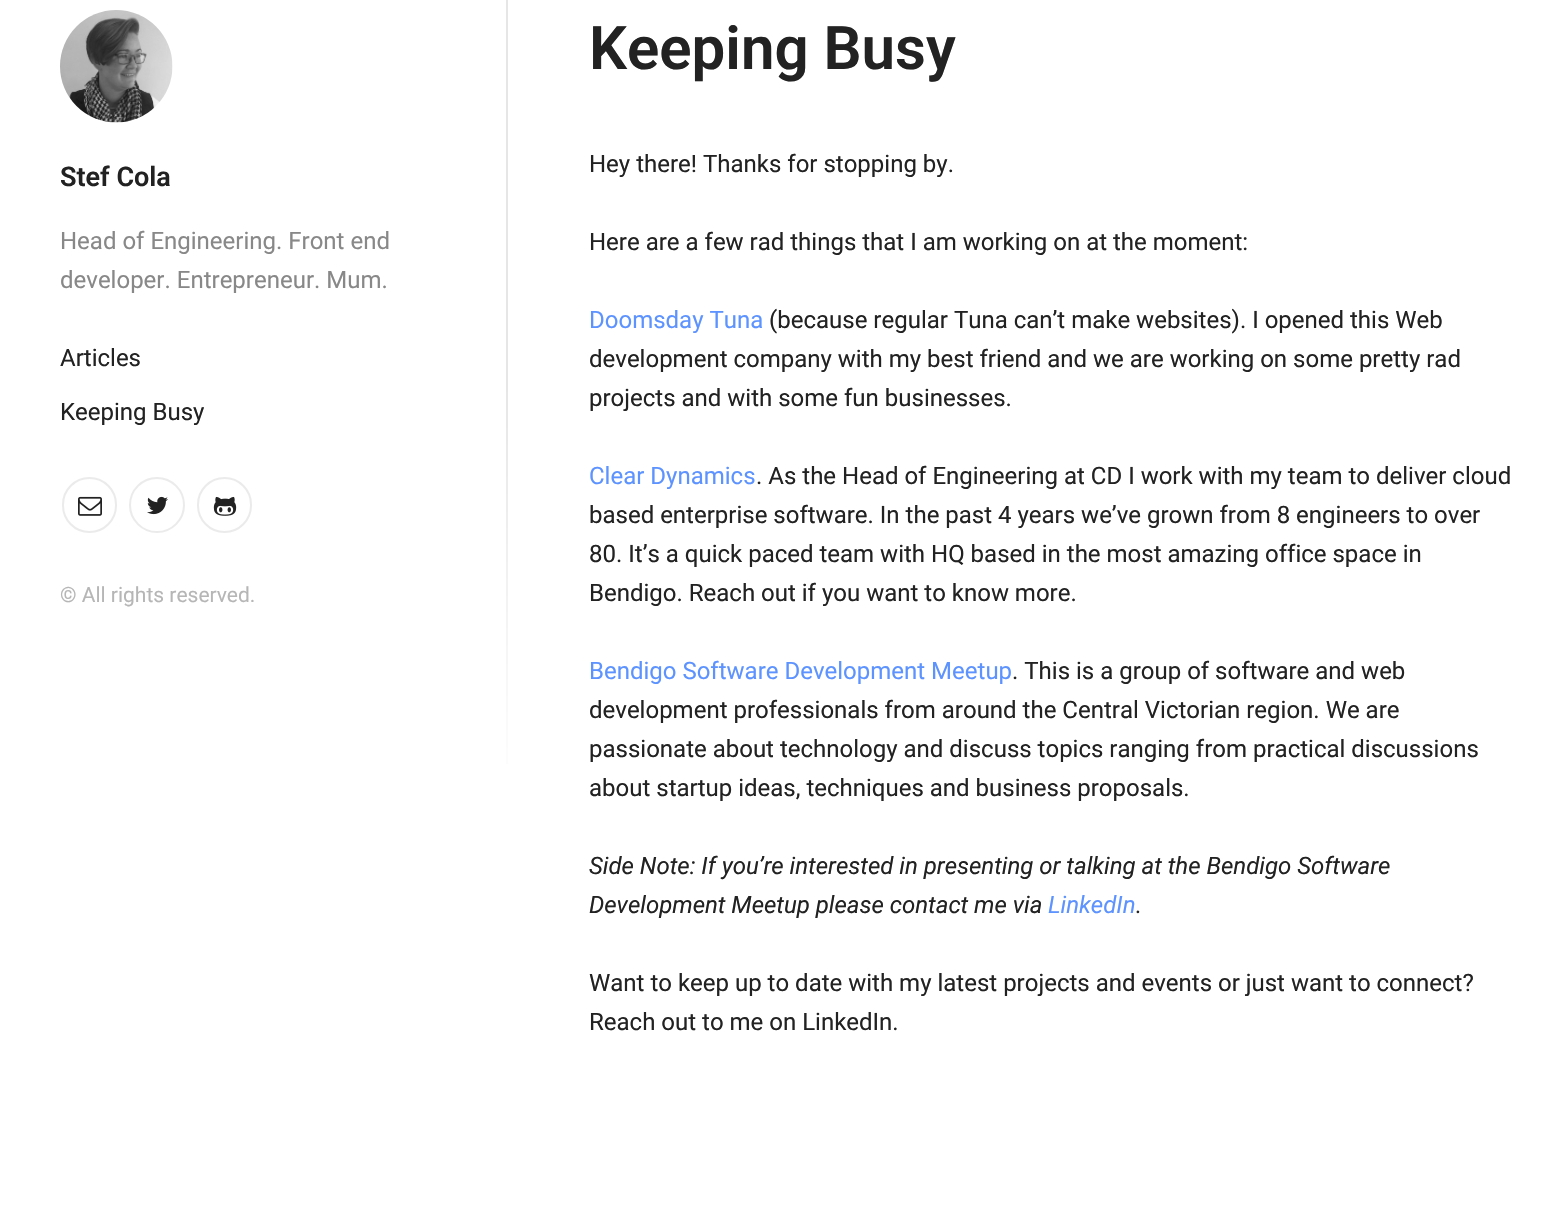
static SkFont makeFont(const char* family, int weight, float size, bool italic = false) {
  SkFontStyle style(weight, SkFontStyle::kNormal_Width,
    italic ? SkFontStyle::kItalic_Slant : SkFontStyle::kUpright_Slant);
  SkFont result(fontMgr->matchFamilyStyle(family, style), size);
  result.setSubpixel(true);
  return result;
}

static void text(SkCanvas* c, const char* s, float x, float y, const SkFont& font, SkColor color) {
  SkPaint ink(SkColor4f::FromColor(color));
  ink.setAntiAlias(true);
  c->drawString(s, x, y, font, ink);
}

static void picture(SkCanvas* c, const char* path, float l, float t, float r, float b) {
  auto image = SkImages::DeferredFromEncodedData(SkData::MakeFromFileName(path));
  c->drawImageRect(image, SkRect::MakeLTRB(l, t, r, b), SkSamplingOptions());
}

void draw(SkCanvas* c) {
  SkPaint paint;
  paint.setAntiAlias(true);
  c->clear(0xffffffff);
  picture(c, "img_01.png", 60, 10, 173, 123);
  SkFont face1 = makeFont("Roboto", 600, 27);
  text(c, "Stef Cola", 60, 186, face1, 0xff222222);
  SkFont face2 = makeFont("Roboto", 400, 24);
  text(c, "Head of Engineering. Front end", 60, 249, face2, 0xff888888);
  text(c, "developer. Entrepreneur. Mum.", 60, 288, face2, 0xff888888);
  {
    const SkColor colors[] = {0xffe6e6e6, 0xffe6e6e6, 0xffffffff};
    const float stops[] = {0, 0.48f, 1};
    const SkPoint ends[] = {{506, -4.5f}, {506, 806}};
    paint.setShader(SkGradientShader::MakeLinear(ends, colors, stops, 3, SkTileMode::kClamp));
    paint.setAlpha(255);
  }
  c->drawRect(SkRect::MakeLTRB(506, 0, 508, 764), paint);
  text(c, "Articles", 60, 366, face2, 0xff222222);
  text(c, "Keeping Busy", 60, 420, face2, 0xff222222);
  paint.setStyle(SkPaint::kStroke_Style);
  paint.setStrokeWidth(2);
  paint.setShader(nullptr);
  paint.setColor(0xffebebeb);
  c->drawRoundRect(SkRect::MakeLTRB(63, 478, 116, 532), 26.5f, 26.5f, paint);
  picture(c, "img_02.png", 78, 496, 102, 516);
  c->drawCircle(157, 505, 27, paint);
  picture(c, "img_03.png", 147, 496, 168, 515);
  c->drawRoundRect(SkRect::MakeLTRB(198, 478, 251, 532), 26.5f, 26.5f, paint);
  picture(c, "img_04.png", 213, 496, 237, 516);
  SkFont face3 = makeFont("Roboto", 400, 21);
  text(c, "© All rights reserved.", 60, 602, face3, 0xffb6b6b6);
  SkFont face4 = makeFont("Roboto", 600, 60);
  text(c, "Keeping Busy", 589, 69, face4, 0xff222222);
  text(c, "Hey there! Thanks for stopping by.", 589, 172, face2, 0xff222222);
  text(c, "Here are a few rad things that I am working on at the moment:", 589, 250, face2, 0xff222222);
  text(c, "Doomsday Tuna", 589, 328, face2, 0xff5d93ff);
  text(c, "(because regular Tuna can’t make websites). I opened this Web", 769, 328, face2, 0xff222222);
  text(c, "development company with my best friend and we are working on some pretty rad", 589, 367, face2, 0xff222222);
  text(c, "projects and with some fun businesses.", 589, 406, face2, 0xff222222);
  text(c, "Clear Dynamics", 589, 484, face2, 0xff5d93ff);
  text(c, ". As the Head of Engineering at CD I work with my team to deliver cloud", 756, 484, face2, 0xff222222);
  text(c, "based enterprise software. In the past 4 years we’ve grown from 8 engineers to over", 589, 523, face2, 0xff222222);
  text(c, "80. It’s a quick paced team with HQ based in the most amazing office space in", 589, 562, face2, 0xff222222);
  text(c, "Bendigo. Reach out if you want to know more.", 589, 601, face2, 0xff222222);
  text(c, "Bendigo Software Development Meetup", 589, 679, face2, 0xff5d93ff);
  text(c, ". This is a group of software and web", 1012, 679, face2, 0xff222222);
  text(c, "development professionals from around the Central Victorian region. We are", 589, 718, face2, 0xff222222);
  text(c, "passionate about technology and discuss topics ranging from practical discussions", 589, 757, face2, 0xff222222);
  text(c, "about startup ideas, techniques and business proposals.", 589, 796, face2, 0xff222222);
  SkFont face5 = makeFont("Roboto", 400, 24, true);
  text(c, "Side Note: If you’re interested in presenting or talking at the Bendigo Software", 589, 874, face5, 0xff222222);
  text(c, "Development Meetup please contact me via", 589, 913, face5, 0xff222222);
  text(c, "LinkedIn", 1048, 913, face5, 0xff5d93ff);
  text(c, ".", 1136, 913, face5, 0xff222222);
  text(c, "Want to keep up to date with my latest projects and events or just want to connect?", 589, 991, face2, 0xff222222);
  text(c, "Reach out to me on LinkedIn.", 589, 1030, face2, 0xff222222);
}
